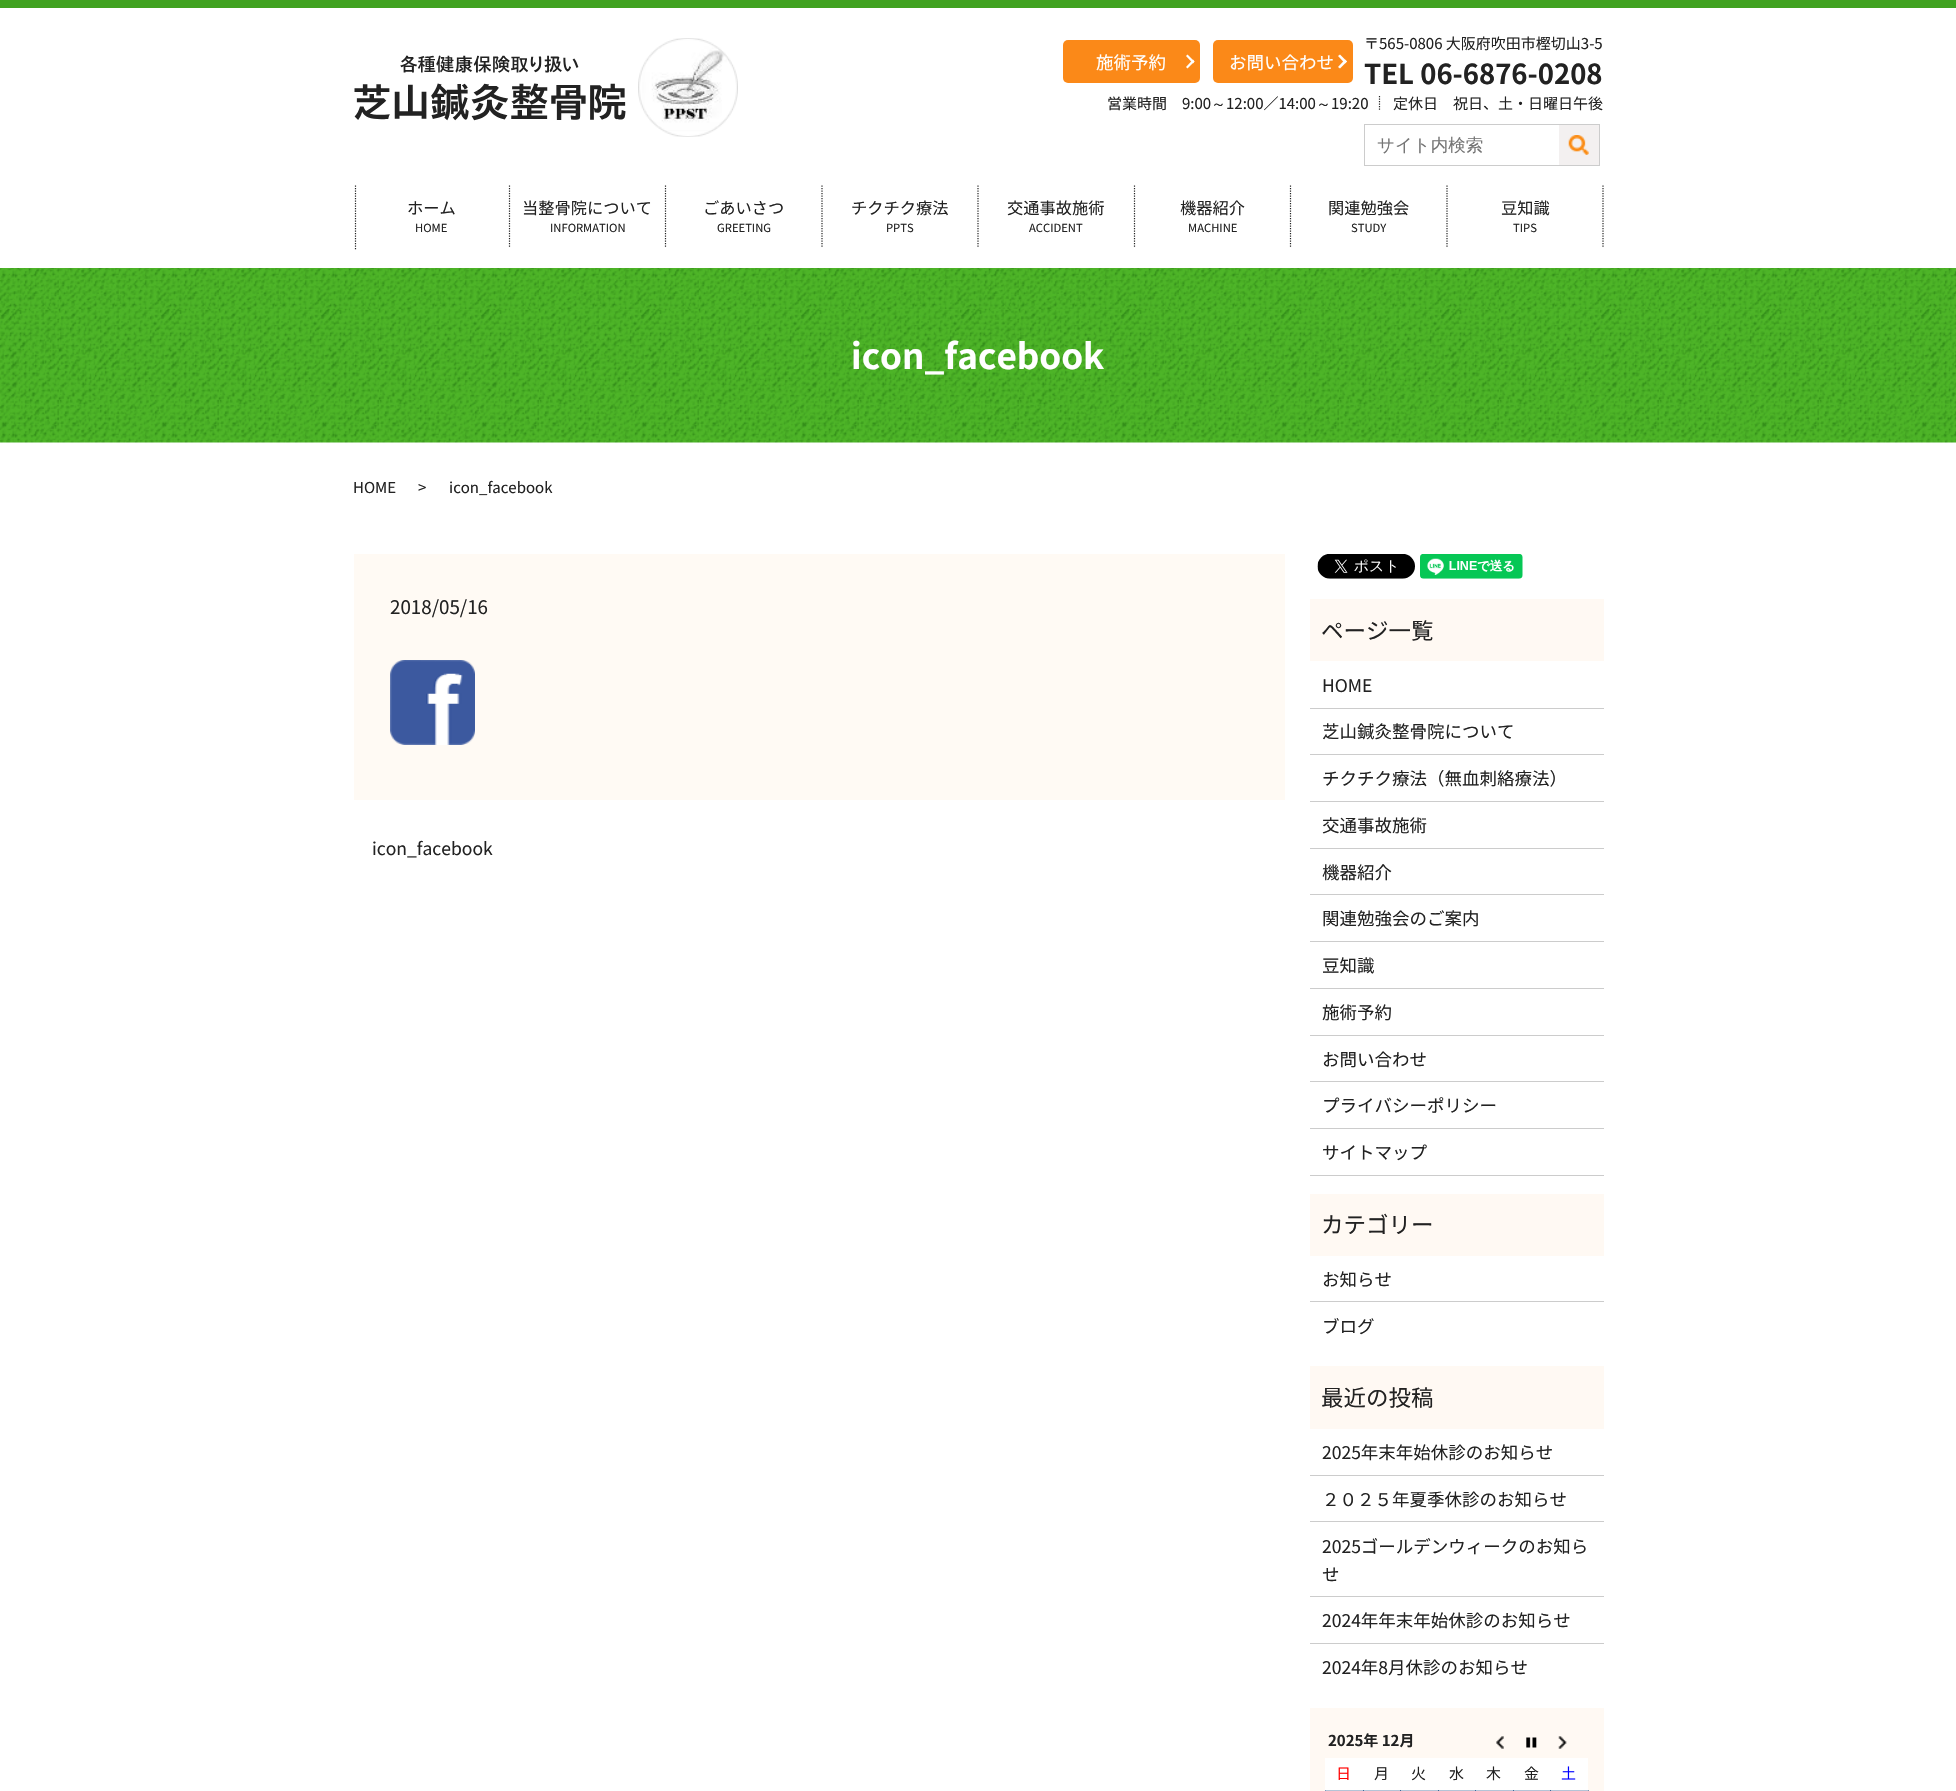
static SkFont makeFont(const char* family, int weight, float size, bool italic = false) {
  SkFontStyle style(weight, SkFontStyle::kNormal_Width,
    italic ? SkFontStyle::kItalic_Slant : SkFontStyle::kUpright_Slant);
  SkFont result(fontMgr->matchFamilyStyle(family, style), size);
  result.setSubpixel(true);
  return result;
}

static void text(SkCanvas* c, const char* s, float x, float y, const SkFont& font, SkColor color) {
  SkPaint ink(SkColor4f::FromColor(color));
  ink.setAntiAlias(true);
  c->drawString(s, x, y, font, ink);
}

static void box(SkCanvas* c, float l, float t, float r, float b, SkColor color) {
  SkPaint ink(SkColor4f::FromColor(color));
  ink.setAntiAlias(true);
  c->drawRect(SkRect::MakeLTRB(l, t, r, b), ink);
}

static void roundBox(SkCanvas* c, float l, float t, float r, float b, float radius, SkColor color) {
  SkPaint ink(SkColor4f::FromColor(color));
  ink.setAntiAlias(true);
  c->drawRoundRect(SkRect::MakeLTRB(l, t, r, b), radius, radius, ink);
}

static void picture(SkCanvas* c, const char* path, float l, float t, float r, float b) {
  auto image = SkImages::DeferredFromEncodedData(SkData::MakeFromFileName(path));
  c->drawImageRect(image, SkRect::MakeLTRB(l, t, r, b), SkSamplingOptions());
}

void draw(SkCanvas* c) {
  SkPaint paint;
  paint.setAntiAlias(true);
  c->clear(0xffffffff);
  box(c, 0, 0, 1956, 8, 0xff41a221);
  picture(c, "img_01.png", 354, 38, 738, 137);
  roundBox(c, 1063, 40, 1200, 83, 5, 0xfffb8918);
  SkFont face1 = makeFont("Noto Sans JP", 400, 17.5f);
  text(c, "施術予約", 1096, 69, face1, 0xffffffff);
  paint.setColor(0xffffffff);
  c->drawPath(SkPathBuilder().moveTo(1187.5f, 54.5f).lineTo(1194.5f, 61.5f).lineTo(1193, 63.5f).lineTo(1186, 56).close().detach(), paint);
  c->drawPath(SkPathBuilder().moveTo(1193, 59.5f).lineTo(1194.5f, 61.5f).lineTo(1187.5f, 68.5f).lineTo(1186, 67).close().detach(), paint);
  roundBox(c, 1213, 40, 1353, 83, 5, 0xfffb8918);
  text(c, "お問い合わせ", 1229, 69, face1, 0xffffffff);
  c->drawPath(SkPathBuilder().moveTo(1340, 54.5f).lineTo(1347, 61.5f).lineTo(1345, 63.5f).lineTo(1338, 56).close().detach(), paint);
  c->drawPath(SkPathBuilder().moveTo(1345, 59.5f).lineTo(1347, 61.5f).lineTo(1340, 68.5f).lineTo(1338, 67).close().detach(), paint);
  SkFont face2 = makeFont("Noto Sans JP", 400, 15);
  text(c, "〒565-0806 大阪府吹田市樫切山3-5", 1364, 49, face2, 0xff222222);
  SkFont face3 = makeFont("Noto Sans JP", 700, 27.5f);
  text(c, "TEL 06-6876-0208", 1364, 84, face3, 0xff222222);
  text(c, "営業時間　9:00", 1107, 109, face2, 0xff222222);
  SkFont face4 = makeFont("WenQuanYi Zen Hei", 500, 15);
  text(c, "～", 1211, 109, face4, 0xff222222);
  text(c, "12:00／14:00", 1226, 109, face2, 0xff222222);
  text(c, "～", 1316, 109, face4, 0xff222222);
  text(c, "19:20", 1331, 109, face2, 0xff222222);
  paint.setStyle(SkPaint::kStroke_Style);
  paint.setStrokeWidth(1.2f);
  paint.setColor(0xff222222);
  paint.setPathEffect(SkDashPathEffect::Make({{1.25f, 1.25f}}, 0));
  c->drawPath(SkPathBuilder().moveTo(1379.5f, 96).lineTo(1379.5f, 111).detach(), paint);
  paint.setPathEffect(nullptr);
  text(c, "定休日　祝日、土・日曜日午後", 1393, 109, face2, 0xff222222);
  paint.setStrokeWidth(1);
  paint.setColor(0xffcccccc);
  c->drawRect(SkRect::MakeLTRB(1364.5f, 124.5f, 1599.5f, 165.5f), paint);
  SkFont face5 = makeFont("WenQuanYi Zen Hei", 500, 17.5f);
  text(c, "サイト内検索", 1377, 151, face5, 0xff757575);
  box(c, 1559, 125, 1599, 165, 0xfff3f0f0);
  picture(c, "img_02.png", 1568, 135, 1589, 155);
  paint.setStrokeWidth(1.2f);
  paint.setColor(0xff222222);
  paint.setPathEffect(SkDashPathEffect::Make({{1.25f, 1.25f}}, 0));
  c->drawPath(SkPathBuilder().moveTo(355.5f, 185.5f).lineTo(355.5f, 249.5f).detach(), paint);
  paint.setPathEffect(nullptr);
  SkFont face6 = makeFont("Noto Sans JP", 400, 16.25f);
  text(c, "ホーム", 407, 214, face6, 0xff222222);
  paint.setPathEffect(SkDashPathEffect::Make({{1.25f, 1.25f}}, 0));
  c->drawPath(SkPathBuilder().moveTo(509.5f, 185.5f).lineTo(509.5f, 247).detach(), paint);
  paint.setPathEffect(nullptr);
  SkFont face7 = makeFont("Noto Sans JP", 400, 11.25f);
  text(c, "HOME", 415, 232, face7, 0xff222222);
  text(c, "当整骨院について", 522, 214, face6, 0xff222222);
  paint.setPathEffect(SkDashPathEffect::Make({{1.25f, 1.25f}}, 0));
  c->drawPath(SkPathBuilder().moveTo(665.5f, 185.5f).lineTo(665.5f, 247).detach(), paint);
  paint.setPathEffect(nullptr);
  text(c, "INFORMATION", 550, 232, face7, 0xff222222);
  text(c, "ごあいさつ", 703, 214, face6, 0xff222222);
  paint.setPathEffect(SkDashPathEffect::Make({{1.25f, 1.25f}}, 0));
  c->drawPath(SkPathBuilder().moveTo(822, 185.5f).lineTo(822, 247).detach(), paint);
  paint.setPathEffect(nullptr);
  text(c, "GREETING", 717, 232, face7, 0xff222222);
  text(c, "チクチク療法", 851, 214, face6, 0xff222222);
  paint.setPathEffect(SkDashPathEffect::Make({{1.25f, 1.25f}}, 0));
  c->drawPath(SkPathBuilder().moveTo(978, 185.5f).lineTo(978, 247).detach(), paint);
  paint.setPathEffect(nullptr);
  text(c, "PPTS", 886, 232, face7, 0xff222222);
  text(c, "交通事故施術", 1007, 214, face6, 0xff222222);
  paint.setPathEffect(SkDashPathEffect::Make({{1.25f, 1.25f}}, 0));
  c->drawPath(SkPathBuilder().moveTo(1134.5f, 185.5f).lineTo(1134.5f, 247).detach(), paint);
  paint.setPathEffect(nullptr);
  text(c, "ACCIDENT", 1029, 232, face7, 0xff222222);
  text(c, "機器紹介", 1180, 214, face6, 0xff222222);
  paint.setPathEffect(SkDashPathEffect::Make({{1.25f, 1.25f}}, 0));
  c->drawPath(SkPathBuilder().moveTo(1290.5f, 185.5f).lineTo(1290.5f, 247).detach(), paint);
  paint.setPathEffect(nullptr);
  text(c, "MACHINE", 1188, 232, face7, 0xff222222);
  text(c, "関連勉強会", 1328, 214, face6, 0xff222222);
  paint.setPathEffect(SkDashPathEffect::Make({{1.25f, 1.25f}}, 0));
  c->drawPath(SkPathBuilder().moveTo(1447, 185.5f).lineTo(1447, 247).detach(), paint);
  paint.setPathEffect(nullptr);
  text(c, "STUDY", 1351, 232, face7, 0xff222222);
  text(c, "豆知識", 1501, 214, face6, 0xff222222);
  paint.setPathEffect(SkDashPathEffect::Make({{1.25f, 1.25f}}, 0));
  c->drawPath(SkPathBuilder().moveTo(1603, 185.5f).lineTo(1603, 247).detach(), paint);
  paint.setPathEffect(nullptr);
  text(c, "TIPS", 1513, 232, face7, 0xff222222);
  picture(c, "img_03.png", 0, 268, 1956, 443);
  SkFont face8 = makeFont("Noto Sans JP", 700, 35);
  text(c, "icon_facebook", 851, 369, face8, 0xffffffff);
  text(c, "HOME", 353, 493, face2, 0xff222222);
  text(c, ">", 418, 493, face2, 0xff222222);
  text(c, "icon_facebook", 449, 493, face2, 0xff222222);
  box(c, 354, 554, 1285, 800, 0xfffffaf4);
  SkFont face9 = makeFont("Noto Sans JP", 400, 18.75f);
  text(c, "2018/05/16", 390, 614, face9, 0xff222222);
  picture(c, "img_04.png", 390, 660, 475, 745);
  text(c, "icon_facebook", 372, 855, face1, 0xff222222);
  picture(c, "img_05.png", 1317, 554, 1415, 579);
  picture(c, "img_06.png", 1420, 554, 1523, 579);
  box(c, 1310, 599, 1604, 661, 0xfffff9f3);
  SkFont face10 = makeFont("Noto Sans JP", 400, 22.5f);
  text(c, "ページ一覧", 1321, 639, face10, 0xff222222);
  box(c, 1310, 708, 1604, 709, 0xffcccccc);
  text(c, "HOME", 1322, 692, face1, 0xff222222);
  box(c, 1310, 754, 1604, 755, 0xffcccccc);
  text(c, "芝山鍼灸整骨院について", 1322, 738, face1, 0xff222222);
  box(c, 1310, 801, 1604, 802, 0xffcccccc);
  text(c, "チクチク療法（無血刺絡療法）", 1322, 785, face1, 0xff222222);
  box(c, 1310, 848, 1604, 849, 0xffcccccc);
  text(c, "交通事故施術", 1322, 832, face1, 0xff222222);
  box(c, 1310, 894, 1604, 895, 0xffcccccc);
  text(c, "機器紹介", 1322, 879, face1, 0xff222222);
  box(c, 1310, 941, 1604, 942, 0xffcccccc);
  text(c, "関連勉強会のご案内", 1322, 925, face1, 0xff222222);
  box(c, 1310, 988, 1604, 989, 0xffcccccc);
  text(c, "豆知識", 1322, 972, face1, 0xff222222);
  box(c, 1310, 1035, 1604, 1036, 0xffcccccc);
  text(c, "施術予約", 1322, 1019, face1, 0xff222222);
  box(c, 1310, 1081, 1604, 1082, 0xffcccccc);
  text(c, "お問い合わせ", 1322, 1066, face1, 0xff222222);
  box(c, 1310, 1128, 1604, 1129, 0xffcccccc);
  text(c, "プライバシーポリシー", 1322, 1112, face1, 0xff222222);
  box(c, 1310, 1175, 1604, 1176, 0xffcccccc);
  text(c, "サイトマップ", 1322, 1159, face1, 0xff222222);
  box(c, 1310, 1194, 1604, 1256, 0xfffff9f3);
  text(c, "カテゴリー", 1321, 1233, face10, 0xff222222);
  box(c, 1310, 1301, 1604, 1302, 0xffcccccc);
  text(c, "お知らせ", 1322, 1286, face1, 0xff222222);
  text(c, "ブログ", 1322, 1333, face1, 0xff222222);
  box(c, 1310, 1366, 1604, 1429, 0xfffff9f3);
  text(c, "最近の投稿", 1321, 1406, face10, 0xff222222);
  box(c, 1310, 1475, 1604, 1476, 0xffcccccc);
  text(c, "2025年末年始休診のお知らせ", 1322, 1459, face1, 0xff222222);
  box(c, 1310, 1521, 1604, 1522, 0xffcccccc);
  text(c, "２０２５年夏季休診のお知らせ", 1322, 1506, face1, 0xff222222);
  box(c, 1310, 1596, 1604, 1597, 0xffcccccc);
  text(c, "2025ゴールデンウィークのお知ら", 1322, 1553, face1, 0xff222222);
  text(c, "せ", 1322, 1581, face1, 0xff222222);
  box(c, 1310, 1643, 1604, 1644, 0xffcccccc);
  text(c, "2024年年末年始休診のお知らせ", 1322, 1627, face1, 0xff222222);
  text(c, "2024年8月休診のお知らせ", 1322, 1674, face1, 0xff222222);
  box(c, 1310, 1708, 1604, 1791, 0xfffff9f3);
  SkFont face11 = makeFont("Noto Sans JP", 700, 15);
  text(c, "2025年 12月", 1328, 1746, face11, 0xff222222);
  picture(c, "img_07.png", 1496, 1736, 1504, 1749);
  picture(c, "img_08.png", 1526, 1737, 1537, 1748);
  picture(c, "img_09.png", 1558, 1736, 1567, 1749);
  box(c, 1325, 1758, 1588, 1790, 0xffffffff);
  text(c, "日", 1336, 1779, face2, 0xffff0000);
  text(c, "月", 1374, 1779, face2, 0xff222222);
  text(c, "火", 1411, 1779, face2, 0xff222222);
  text(c, "水", 1449, 1779, face2, 0xff222222);
  text(c, "木", 1486, 1779, face2, 0xff222222);
  text(c, "金", 1524, 1779, face2, 0xff222222);
  text(c, "土", 1561, 1779, face2, 0xff0000ff);
  box(c, 1325, 1790, 1588, 1791, 0xffb3c4d7);
  box(c, 1363, 1790, 1364, 1791, 0xff3d699a);
  box(c, 1325, 1790, 1326, 1791, 0xff7d9abb);
  box(c, 1400, 1790, 1401, 1791, 0xff3d699a);
  box(c, 1438, 1790, 1439, 1791, 0xff3d699a);
  box(c, 1475, 1790, 1476, 1791, 0xff3d699a);
  box(c, 1513, 1790, 1514, 1791, 0xff3d699a);
  box(c, 1550, 1790, 1551, 1791, 0xff3d699a);
  box(c, 1588, 1790, 1589, 1791, 0xff7d97b5);
}
